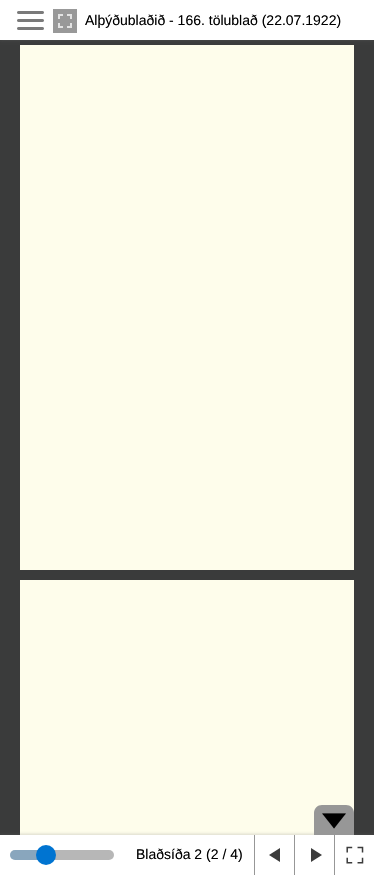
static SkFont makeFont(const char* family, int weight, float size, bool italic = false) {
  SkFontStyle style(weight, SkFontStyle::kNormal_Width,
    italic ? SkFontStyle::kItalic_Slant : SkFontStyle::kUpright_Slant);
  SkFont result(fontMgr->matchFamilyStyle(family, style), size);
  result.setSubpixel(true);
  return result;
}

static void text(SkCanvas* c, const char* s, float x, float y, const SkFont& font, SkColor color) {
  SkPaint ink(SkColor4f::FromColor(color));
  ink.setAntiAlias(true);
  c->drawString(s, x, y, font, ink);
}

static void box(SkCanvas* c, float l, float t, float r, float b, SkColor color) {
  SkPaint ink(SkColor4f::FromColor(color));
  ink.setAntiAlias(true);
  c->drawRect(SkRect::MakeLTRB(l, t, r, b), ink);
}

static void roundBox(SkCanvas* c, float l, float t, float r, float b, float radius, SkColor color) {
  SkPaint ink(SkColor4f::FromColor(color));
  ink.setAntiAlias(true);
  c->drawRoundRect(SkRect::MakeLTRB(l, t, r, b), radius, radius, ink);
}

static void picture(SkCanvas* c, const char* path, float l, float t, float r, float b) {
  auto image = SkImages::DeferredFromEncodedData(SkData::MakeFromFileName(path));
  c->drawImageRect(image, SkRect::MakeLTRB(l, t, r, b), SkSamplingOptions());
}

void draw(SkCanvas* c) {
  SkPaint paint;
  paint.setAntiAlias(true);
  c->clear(0xff3a3b3b);
  box(c, 20, 45, 354, 570, 0xfffefdeb);
  paint.setColor(0x40666666);
  paint.setMaskFilter(SkMaskFilter::MakeBlur(kNormal_SkBlurStyle, 1.5f));
  c->drawRect(SkRect::MakeLTRB(0, 1, 374, 41), paint);
  paint.setMaskFilter(nullptr);
  box(c, 0, 0, 374, 40, 0xffffffff);
  picture(c, "img_01.png", 17, 11, 44, 30);
  box(c, 53, 9, 77, 33, 0xff999999);
  picture(c, "img_02.png", 58, 14, 72, 28);
  SkFont face1 = makeFont("Liberation Sans", 400, 14);
  text(c, "Alþýðublaðið - 166. tölublað (22.07.1922)", 85, 25, face1, 0xff000000);
  box(c, 20, 580, 354, 835, 0xfffefdeb);
  paint.setMaskFilter(SkMaskFilter::MakeBlur(kNormal_SkBlurStyle, 1.5f));
  c->drawRect(SkRect::MakeLTRB(0, 834, 374, 874), paint);
  paint.setMaskFilter(nullptr);
  box(c, 0, 835, 374, 875, 0xffffffff);
  paint.setColor(0xff979797);
  c->drawPath(SkPathBuilder().moveTo(322, 805).lineTo(346, 805).cubicTo(350.5f, 805, 354, 808.5f, 354, 813).lineTo(354, 835).lineTo(314, 835).lineTo(314, 813).cubicTo(314, 808.5f, 317.5f, 805, 322, 805).close().detach(), paint);
  picture(c, "img_03.png", 322, 813, 346, 829);
  roundBox(c, 10, 850, 114, 860, 5, 0xffb7b7b7);
  roundBox(c, 10, 850, 45, 860, 5, 0x400074d1);
  paint.setColor(0xff0074d1);
  c->drawCircle(46, 855, 10, paint);
  text(c, "Blaðsíða 2 (2 / 4)", 136, 859, face1, 0xff000000);
  picture(c, "img_04.png", 269, 848, 280, 862);
  box(c, 254, 835, 255, 875, 0xff979797);
  picture(c, "img_05.png", 311, 848, 322, 862);
  box(c, 294, 835, 295, 875, 0xff979797);
  picture(c, "img_06.png", 346, 846, 364, 864);
  box(c, 334, 835, 335, 875, 0xff979797);
}
